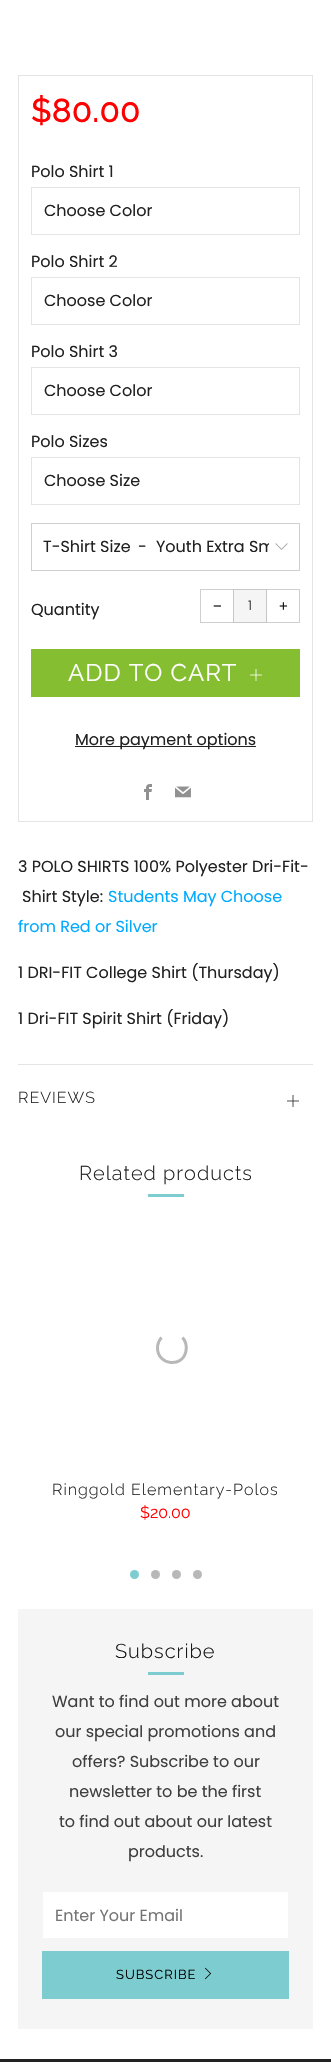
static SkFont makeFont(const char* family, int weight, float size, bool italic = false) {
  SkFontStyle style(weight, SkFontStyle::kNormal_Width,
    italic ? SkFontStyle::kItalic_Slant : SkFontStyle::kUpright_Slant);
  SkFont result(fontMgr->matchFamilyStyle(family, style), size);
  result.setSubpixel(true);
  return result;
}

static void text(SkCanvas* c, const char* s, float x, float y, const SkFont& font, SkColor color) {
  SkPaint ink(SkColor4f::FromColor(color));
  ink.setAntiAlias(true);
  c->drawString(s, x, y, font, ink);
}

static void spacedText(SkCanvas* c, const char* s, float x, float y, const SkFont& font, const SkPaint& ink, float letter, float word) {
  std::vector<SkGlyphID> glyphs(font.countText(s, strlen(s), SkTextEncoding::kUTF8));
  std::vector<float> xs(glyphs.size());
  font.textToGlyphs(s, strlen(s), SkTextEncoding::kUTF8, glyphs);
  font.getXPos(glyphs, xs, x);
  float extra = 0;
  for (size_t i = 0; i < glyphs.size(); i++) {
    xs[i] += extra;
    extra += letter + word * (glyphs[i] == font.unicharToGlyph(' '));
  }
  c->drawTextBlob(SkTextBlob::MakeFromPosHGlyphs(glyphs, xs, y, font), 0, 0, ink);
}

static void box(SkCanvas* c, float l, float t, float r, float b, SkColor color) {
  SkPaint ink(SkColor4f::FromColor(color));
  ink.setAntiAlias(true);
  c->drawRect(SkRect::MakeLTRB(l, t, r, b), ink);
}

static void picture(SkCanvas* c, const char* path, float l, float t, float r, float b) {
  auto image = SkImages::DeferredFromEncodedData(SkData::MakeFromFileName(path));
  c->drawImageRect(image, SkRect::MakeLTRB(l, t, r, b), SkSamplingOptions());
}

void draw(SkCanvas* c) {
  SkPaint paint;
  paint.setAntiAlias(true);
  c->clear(0xffffffff);
  paint.setStyle(SkPaint::kStroke_Style);
  paint.setStrokeWidth(1);
  paint.setColor(0xffe4e4e4);
  c->drawRect(SkRect::MakeLTRB(18.5f, 75.5f, 312.5f, 821.5f), paint);
  SkFont face1 = makeFont("Raleway", 700, 32);
  paint.setStyle(SkPaint::kFill_Style);
  paint.setColor(0xffff0000);
  spacedText(c, "$80.00", 31, 122, face1, paint, 1, 0);
  SkFont face2 = makeFont("Poppins", 400, 16);
  text(c, "Polo Shirt 1", 31, 177, face2, 0xff212121);
  paint.setStyle(SkPaint::kStroke_Style);
  paint.setColor(0xffe4e4e4);
  c->drawRect(SkRect::MakeLTRB(31.5f, 187.5f, 299.5f, 234.5f), paint);
  text(c, "Choose Color", 44, 216, face2, 0xff212121);
  text(c, "Polo Shirt 2", 31, 267, face2, 0xff212121);
  c->drawRect(SkRect::MakeLTRB(31.5f, 277.5f, 299.5f, 324.5f), paint);
  text(c, "Choose Color", 44, 306, face2, 0xff212121);
  text(c, "Polo Shirt 3", 31, 357, face2, 0xff212121);
  c->drawRect(SkRect::MakeLTRB(31.5f, 367.5f, 299.5f, 414.5f), paint);
  text(c, "Choose Color", 44, 396, face2, 0xff212121);
  text(c, "Polo Sizes", 31, 447, face2, 0xff212121);
  c->drawRect(SkRect::MakeLTRB(31.5f, 457.5f, 299.5f, 504.5f), paint);
  text(c, "Choose Size", 44, 486, face2, 0xff212121);
  paint.setColor(0xffcfcfcf);
  c->drawRect(SkRect::MakeLTRB(31.5f, 523.5f, 299.5f, 570.5f), paint);
  text(c, "T-Shirt Size", 43, 552, face2, 0xff212121);
  text(c, "-", 138, 552, face2, 0xff212121);
  c->save();
  c->clipRect(SkRect::MakeLTRB(156, 536, 269, 558));
  text(c, "Youth Extra Sm", 156, 552, face2, 0xff212121);
  c->restore();
  picture(c, "img_01.png", 275, 543, 288, 550);
  text(c, "Quantity", 31, 615, face2, 0xff212121);
  c->drawRect(SkRect::MakeLTRB(200.5f, 589.5f, 233.5f, 622.5f), paint);
  SkFont face3 = makeFont("Liberation Sans", 400, 15);
  text(c, "−", 213, 611, face3, 0xff111111);
  paint.setStyle(SkPaint::kFill_Style);
  paint.setColor(0xfff5f5f5);
  c->drawRect(SkRect::MakeLTRB(233.5f, 589.5f, 266.5f, 622.5f), paint);
  paint.setStyle(SkPaint::kStroke_Style);
  paint.setColor(0xffc7c7c7);
  c->drawRect(SkRect::MakeLTRB(233.5f, 589.5f, 266.5f, 622.5f), paint);
  SkFont face4 = makeFont("Poppins", 400, 13);
  text(c, "1", 248, 610, face4, 0xff555555);
  box(c, 266, 589, 267, 623, 0xccffffff);
  paint.setColor(0x33111111);
  c->drawRect(SkRect::MakeLTRB(266.5f, 589.5f, 299.5f, 622.5f), paint);
  text(c, "+", 279, 611, face3, 0xff111111);
  box(c, 31, 649, 300, 697, 0xff85bf31);
  SkFont face5 = makeFont("Raleway", 400, 24);
  paint.setStyle(SkPaint::kFill_Style);
  paint.setColor(0xffffffff);
  spacedText(c, "ADD TO CART", 68, 681, face5, paint, 1, 0);
  picture(c, "img_02.png", 250, 669, 262, 681);
  box(c, 75, 746, 256, 747, 0xff212121);
  text(c, "More payment options", 75, 745, face2, 0xff212121);
  picture(c, "img_03.png", 144, 784, 152, 800);
  picture(c, "img_04.png", 175, 786, 191, 798);
  text(c, "3 POLO SHIRTS 100% Polyester Dri-Fit-", 18, 872, face2, 0xff212121);
  text(c, "Shirt Style:", 22, 902, face2, 0xff212121);
  text(c, "Students May Choose", 108, 902, face2, 0xff00aaff);
  text(c, "from Red or Silver", 18, 932, face2, 0xff00aaff);
  text(c, "1 DRI-FIT College Shirt (Thursday)", 18, 978, face2, 0xff212121);
  text(c, "1 Dri-FIT Spirit Shirt (Friday)", 18, 1024, face2, 0xff212121);
  box(c, 18, 1064, 313, 1065, 0xffe4e4e4);
  SkFont face6 = makeFont("Raleway", 300, 16);
  paint.setColor(0xff212121);
  spacedText(c, "REVIEWS", 18, 1103, face6, paint, 1, 0);
  picture(c, "img_05.png", 287, 1095, 299, 1107);
  SkFont face7 = makeFont("Raleway", 300, 20);
  spacedText(c, "Related products", 79, 1180, face7, paint, 1, 0);
  box(c, 148, 1194, 184, 1197, 0xff7dccd0);
  paint.setStyle(SkPaint::kStroke_Style);
  paint.setStrokeWidth(3);
  paint.setColor(0xffb8b8b8);
  c->drawPath(SkPathBuilder().moveTo(182.5f, 1337.5f).cubicTo(185.5f, 1341, 187, 1346, 186, 1351).cubicTo(183, 1368, 157.5f, 1365.5f, 157.5f, 1348).cubicTo(157.5f, 1344, 159, 1340.5f, 161.5f, 1337.5f).detach(), paint);
  paint.setStyle(SkPaint::kFill_Style);
  paint.setColor(0xff212121);
  spacedText(c, "Ringgold Elementary-Polos", 52, 1495, face6, paint, 1, 0);
  SkFont face8 = makeFont("Raleway", 400, 16);
  text(c, "$20.00", 140, 1518, face8, 0xffff0000);
  paint.setColor(0xff7dccd0);
  c->drawCircle(134.5f, 1574.5f, 4.5f, paint);
  paint.setColor(0xffb8b8b8);
  c->drawCircle(155.5f, 1574.5f, 4.5f, paint);
  c->drawCircle(176.5f, 1574.5f, 4.5f, paint);
  c->drawCircle(197.5f, 1574.5f, 4.5f, paint);
  box(c, 18, 1609, 313, 2029, 0xfff5f5f5);
  paint.setColor(0xff111111);
  spacedText(c, "Subscribe", 115, 1658, face7, paint, 1, 0);
  box(c, 148, 1672, 184, 1675, 0xff7dccd0);
  text(c, "Want to find out more about", 52, 1707, face2, 0xff3f3f3f);
  text(c, "our special promotions and", 55, 1737, face2, 0xff3f3f3f);
  text(c, "offers? Subscribe to our", 72, 1767, face2, 0xff3f3f3f);
  text(c, "newsletter to be the first", 69, 1797, face2, 0xff3f3f3f);
  text(c, "to find out about our latest", 59, 1827, face2, 0xff3f3f3f);
  text(c, "products.", 128, 1857, face2, 0xff3f3f3f);
  box(c, 43, 1892, 288, 1938, 0xffffffff);
  text(c, "Enter Your Email", 55, 1921, face2, 0xff757575);
  box(c, 42, 1951, 289, 1999, 0xff7dccd0);
  SkFont face9 = makeFont("Raleway", 400, 13);
  paint.setColor(0xff000000);
  spacedText(c, "SUBSCRIBE", 116, 1979, face9, paint, 1, 0);
  picture(c, "img_06.png", 204, 1967, 212, 1980);
  box(c, 0, 2059, 331, 2062, 0xff222222);
}
